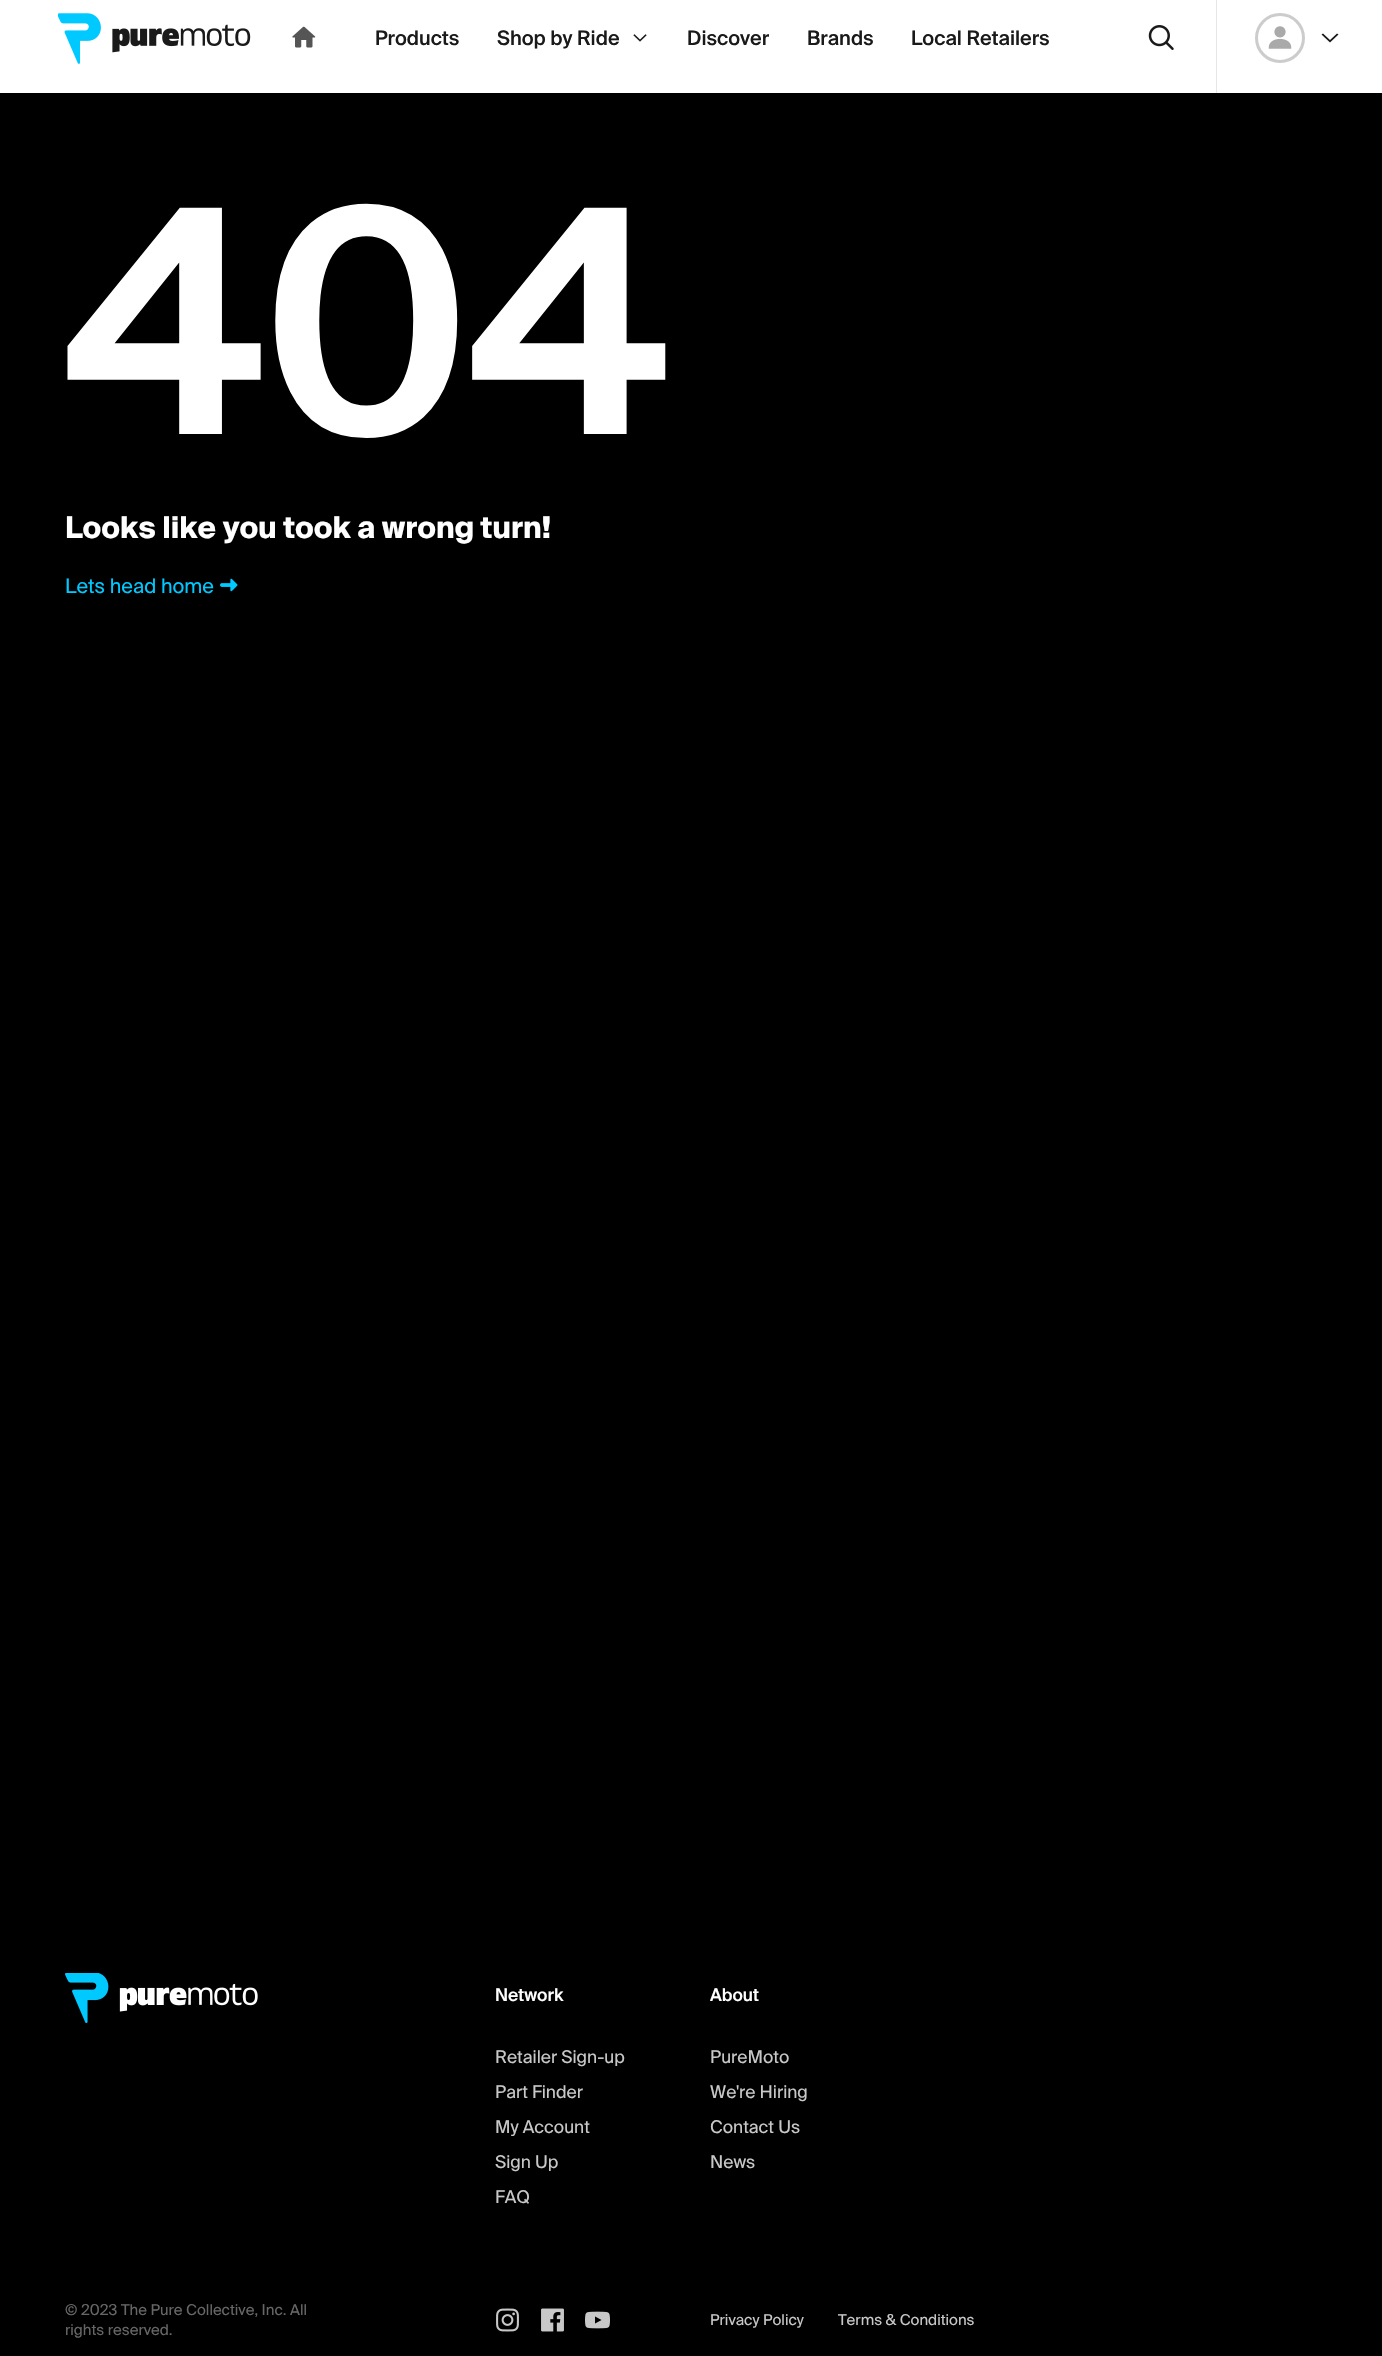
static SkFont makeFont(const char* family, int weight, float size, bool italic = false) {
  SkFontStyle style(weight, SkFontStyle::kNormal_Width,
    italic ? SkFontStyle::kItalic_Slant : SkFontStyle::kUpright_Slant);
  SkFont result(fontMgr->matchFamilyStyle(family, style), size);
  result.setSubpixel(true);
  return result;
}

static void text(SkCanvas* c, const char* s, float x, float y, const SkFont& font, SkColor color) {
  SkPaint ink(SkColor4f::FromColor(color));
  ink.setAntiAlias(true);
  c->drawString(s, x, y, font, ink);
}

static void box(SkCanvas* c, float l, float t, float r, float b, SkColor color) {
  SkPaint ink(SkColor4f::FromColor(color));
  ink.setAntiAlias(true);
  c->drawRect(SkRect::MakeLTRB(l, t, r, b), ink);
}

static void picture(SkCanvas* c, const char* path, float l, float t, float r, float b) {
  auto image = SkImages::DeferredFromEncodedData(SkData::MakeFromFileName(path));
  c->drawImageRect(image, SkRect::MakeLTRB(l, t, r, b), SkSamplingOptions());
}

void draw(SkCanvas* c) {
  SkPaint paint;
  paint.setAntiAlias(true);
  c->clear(0xff000000);
  box(c, 0, 0, 1382, 93, 0xffffffff);
  picture(c, "img_01.png", 58, 13, 251, 64);
  picture(c, "img_02.png", 292, 26, 316, 48);
  SkFont face1 = makeFont("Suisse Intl", 500, 20);
  text(c, "Products", 375, 45, face1, 0xff1a1a1a);
  text(c, "Shop by Ride", 497, 45, face1, 0xff1a1a1a);
  picture(c, "img_03.png", 633, 34, 647, 42);
  text(c, "Discover", 687, 45, face1, 0xff1a1a1a);
  text(c, "Brands", 807, 45, face1, 0xff1a1a1a);
  text(c, "Local Retailers", 911, 45, face1, 0xff1a1a1a);
  picture(c, "img_04.png", 1148, 25, 1174, 50);
  box(c, 1216, 0, 1217, 93, 0xffe6e6e6);
  picture(c, "img_05.png", 1268, 26, 1292, 49);
  paint.setStyle(SkPaint::kStroke_Style);
  paint.setStrokeWidth(3);
  paint.setColor(0xffcccccc);
  c->drawCircle(1280, 38, 23.5f, paint);
  paint.setStyle(SkPaint::kFill_Style);
  paint.setColor(0xff1a1a1a);
  c->drawPath(SkPathBuilder().moveTo(1321.5f, 34.5f).lineTo(1330, 42.5f).lineTo(1338.5f, 34.5f).lineTo(1337, 33.5f).lineTo(1330, 40).lineTo(1323, 33.5f).close().detach(), paint);
  SkFont face2 = makeFont("Suisse Intl", 600, 312);
  text(c, "404", 65, 434, face2, 0xffffffff);
  SkFont face3 = makeFont("Suisse Intl", 700, 30);
  text(c, "Looks like you took a wrong turn!", 65, 538, face3, 0xffffffff);
  SkFont face4 = makeFont("Suisse Intl", 400, 20);
  text(c, "Lets head home", 65, 593, face4, 0xff00c9ff);
  picture(c, "img_06.png", 220, 578, 238, 592);
  picture(c, "img_07.png", 65, 1973, 258, 2023);
  SkFont face5 = makeFont("Suisse Intl", 500, 17.5f);
  text(c, "Network", 495, 2001, face5, 0xffffffff);
  SkFont face6 = makeFont("Suisse Intl", 400, 17.5f);
  text(c, "Retailer Sign-up", 495, 2063, face6, 0xffc8c8c8);
  text(c, "Part Finder", 495, 2098, face6, 0xffc8c8c8);
  text(c, "My Account", 495, 2133, face6, 0xffc8c8c8);
  text(c, "Sign Up", 495, 2168, face6, 0xffc8c8c8);
  text(c, "FAQ", 495, 2203, face6, 0xffc8c8c8);
  text(c, "About", 710, 2001, face5, 0xffffffff);
  text(c, "PureMoto", 710, 2063, face6, 0xffc8c8c8);
  text(c, "We're Hiring", 710, 2098, face6, 0xffc8c8c8);
  text(c, "Contact Us", 710, 2133, face6, 0xffc8c8c8);
  text(c, "News", 710, 2168, face6, 0xffc8c8c8);
  SkFont face7 = makeFont("Suisse Intl", 400, 15);
  text(c, "© 2023 The Pure Collective, Inc. All", 65, 2315, face7, 0xff666666);
  text(c, "rights reserved.", 65, 2335, face7, 0xff666666);
  picture(c, "img_08.png", 496, 2308, 519, 2332);
  picture(c, "img_09.png", 541, 2308, 564, 2332);
  picture(c, "img_10.png", 585, 2311, 610, 2329);
  text(c, "Privacy Policy", 710, 2325, face7, 0xffc8c8c8);
  text(c, "Terms & Conditions", 838, 2325, face7, 0xffc8c8c8);
}
